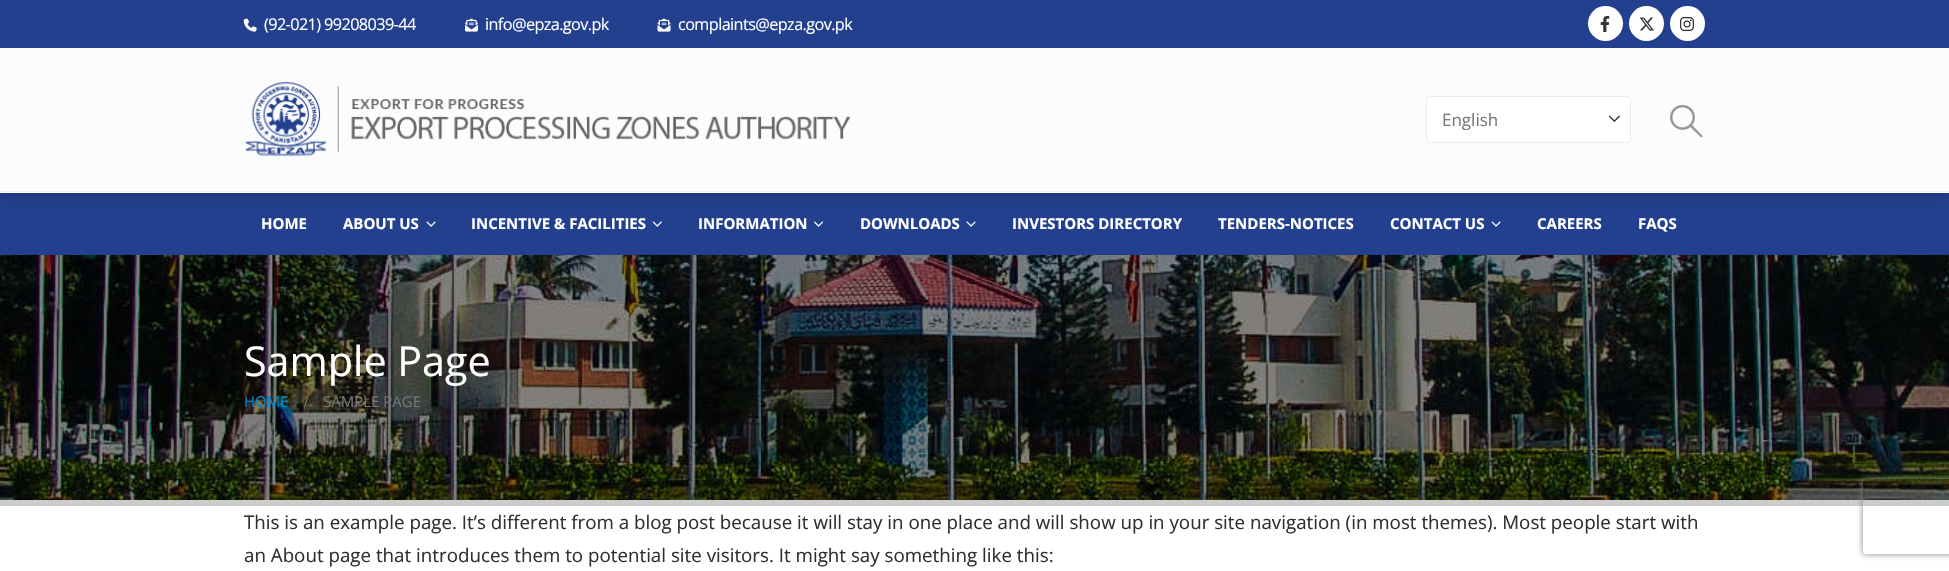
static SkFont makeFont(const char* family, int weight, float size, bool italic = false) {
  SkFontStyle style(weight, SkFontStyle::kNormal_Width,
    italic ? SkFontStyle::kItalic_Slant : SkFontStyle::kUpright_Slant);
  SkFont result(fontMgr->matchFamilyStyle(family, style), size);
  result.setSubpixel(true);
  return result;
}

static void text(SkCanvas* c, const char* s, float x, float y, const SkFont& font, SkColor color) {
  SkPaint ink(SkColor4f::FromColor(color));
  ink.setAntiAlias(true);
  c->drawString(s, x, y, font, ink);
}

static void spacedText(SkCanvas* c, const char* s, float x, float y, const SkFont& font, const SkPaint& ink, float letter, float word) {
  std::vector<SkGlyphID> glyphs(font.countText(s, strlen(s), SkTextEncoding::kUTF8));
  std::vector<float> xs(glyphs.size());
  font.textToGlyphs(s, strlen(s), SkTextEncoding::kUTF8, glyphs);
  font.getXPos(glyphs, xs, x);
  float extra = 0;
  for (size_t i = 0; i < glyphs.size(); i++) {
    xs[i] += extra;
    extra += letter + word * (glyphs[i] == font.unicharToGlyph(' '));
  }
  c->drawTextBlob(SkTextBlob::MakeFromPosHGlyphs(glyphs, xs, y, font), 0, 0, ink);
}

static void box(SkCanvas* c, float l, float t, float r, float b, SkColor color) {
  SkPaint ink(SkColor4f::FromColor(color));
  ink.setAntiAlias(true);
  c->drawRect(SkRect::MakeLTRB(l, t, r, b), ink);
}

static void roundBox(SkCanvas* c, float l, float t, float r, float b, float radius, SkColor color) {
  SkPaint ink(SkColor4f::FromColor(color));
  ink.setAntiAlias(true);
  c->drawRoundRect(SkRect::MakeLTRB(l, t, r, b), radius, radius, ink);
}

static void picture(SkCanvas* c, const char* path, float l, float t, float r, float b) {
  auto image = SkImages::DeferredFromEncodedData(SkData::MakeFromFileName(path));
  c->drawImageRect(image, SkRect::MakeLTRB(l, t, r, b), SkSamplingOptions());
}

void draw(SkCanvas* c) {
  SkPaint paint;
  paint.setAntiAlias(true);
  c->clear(0xfffcfcfc);
  box(c, 0, 193, 1949, 255, 0xff23408e);
  c->save();
  c->clipPath(SkPathBuilder(SkPathFillType::kEvenOdd).moveTo(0, 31).lineTo(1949, 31).lineTo(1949, 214).lineTo(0, 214).close().moveTo(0, 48).lineTo(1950, 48).lineTo(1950, 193).lineTo(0, 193).close().detach(), true);
  paint.setColor(0x33000000);
  paint.setMaskFilter(SkMaskFilter::MakeBlur(kNormal_SkBlurStyle, 6));
  c->drawRect(SkRect::MakeLTRB(0, 50, 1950, 195), paint);
  paint.setMaskFilter(nullptr);
  c->restore();
  box(c, 0, 0, 1949, 48, 0xff23408e);
  picture(c, "img_01.png", 243, 18, 257, 32);
  SkFont face1 = makeFont("Open Sans", 400, 16.25f);
  paint.setColor(0xffffffff);
  spacedText(c, "(92-021) 99208039-44", 264, 30, face1, paint, -0.6f, 0);
  box(c, 439, 14, 440, 34, 0xff213d87);
  picture(c, "img_02.png", 465, 18, 478, 32);
  spacedText(c, "info@epza.gov.pk", 485, 30, face1, paint, -0.6f, 0);
  box(c, 631, 14, 632, 34, 0xff213d87);
  picture(c, "img_03.png", 657, 18, 671, 32);
  spacedText(c, "complaints@epza.gov.pk", 678, 30, face1, paint, -0.6f, 0);
  box(c, 875, 14, 876, 34, 0xff213d87);
  c->drawCircle(1605.5f, 23.5f, 17.5f, paint);
  picture(c, "img_04.png", 1600, 16, 1610, 32);
  c->drawCircle(1646.5f, 23.5f, 17.5f, paint);
  picture(c, "img_05.png", 1639, 17, 1654, 31);
  c->drawCircle(1687.5f, 23.5f, 17.5f, paint);
  picture(c, "img_06.png", 1680, 17, 1694, 31);
  box(c, 0, 191, 1949, 192, 0xffeeeeee);
  picture(c, "img_07.png", 245, 82, 851, 157);
  roundBox(c, 1426, 96, 1631, 143, 4, 0xffffffff);
  picture(c, "img_08.png", 1608, 115, 1620, 123);
  paint.setStyle(SkPaint::kStroke_Style);
  paint.setStrokeWidth(1);
  paint.setColor(0xffebebeb);
  c->drawRoundRect(SkRect::MakeLTRB(1426.5f, 96.5f, 1630.5f, 142.5f), 3.5f, 3.5f, paint);
  SkFont face2 = makeFont("Open Sans", 400, 17);
  text(c, "English", 1442, 126, face2, 0xff777777);
  picture(c, "img_09.png", 1670, 104, 1703, 138);
  SkFont face3 = makeFont("Open Sans", 700, 15);
  text(c, "HOME", 261, 229, face3, 0xffffffff);
  text(c, "ABOUT US", 343, 229, face3, 0xffffffff);
  picture(c, "img_10.png", 426, 221, 436, 227);
  text(c, "INCENTIVE & FACILITIES", 471, 229, face3, 0xffffffff);
  picture(c, "img_11.png", 652, 221, 662, 227);
  text(c, "INFORMATION", 698, 229, face3, 0xffffffff);
  picture(c, "img_12.png", 814, 221, 824, 227);
  text(c, "DOWNLOADS", 860, 229, face3, 0xffffffff);
  picture(c, "img_10.png", 966, 221, 976, 227);
  text(c, "INVESTORS DIRECTORY", 1012, 229, face3, 0xffffffff);
  text(c, "TENDERS-NOTICES", 1218, 229, face3, 0xffffffff);
  text(c, "CONTACT US", 1390, 229, face3, 0xffffffff);
  picture(c, "img_10.png", 1491, 221, 1501, 227);
  text(c, "CAREERS", 1537, 229, face3, 0xffffffff);
  text(c, "FAQS", 1638, 229, face3, 0xffffffff);
  picture(c, "img_13.png", 0, 255, 1949, 500);
  box(c, 0, 500, 1949, 506, 0xffcccccc);
  SkFont face4 = makeFont("Open Sans", 400, 41.25f);
  text(c, "Sample Page", 244, 376, face4, 0xffffffff);
  SkFont face5 = makeFont("Open Sans", 400, 15);
  text(c, "HOME", 244, 407, face5, 0xff0088cc);
  SkFont face6 = makeFont("Liberation Serif", 700, 15);
  text(c, "/", 304, 407, face6, 0xff777777);
  text(c, "SAMPLE PAGE", 323, 407, face5, 0xff777777);
  box(c, 0, 506, 1949, 571, 0xffffffff);
  SkFont face7 = makeFont("Open Sans", 400, 18.75f);
  text(c, "This is an example page. It’s different from a blog post because it will stay in one place and will show up in your site navigation (in most themes). Most people start with", 244, 529, face7, 0xff303030);
  text(c, "an About page that introduces them to potential site visitors. It might say something like this:", 244, 562, face7, 0xff303030);
  c->save();
  c->clipPath(SkPathBuilder(SkPathFillType::kEvenOdd).moveTo(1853, 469).lineTo(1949, 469).lineTo(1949, 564).lineTo(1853, 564).close().moveTo(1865.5f, 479).lineTo(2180.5f, 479).cubicTo(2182, 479, 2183, 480, 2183, 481.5f).lineTo(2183, 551.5f).cubicTo(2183, 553, 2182, 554, 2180.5f, 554).lineTo(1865.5f, 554).cubicTo(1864, 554, 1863, 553, 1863, 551.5f).lineTo(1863, 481.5f).cubicTo(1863, 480, 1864, 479, 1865.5f, 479).close().detach(), true);
  paint.setStyle(SkPaint::kFill_Style);
  paint.setColor(0xff808080);
  paint.setMaskFilter(SkMaskFilter::MakeBlur(kNormal_SkBlurStyle, 3));
  c->drawRoundRect(SkRect::MakeLTRB(1863, 479, 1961, 554), 2.5f, 2.5f, paint);
  paint.setMaskFilter(nullptr);
  c->restore();
}
